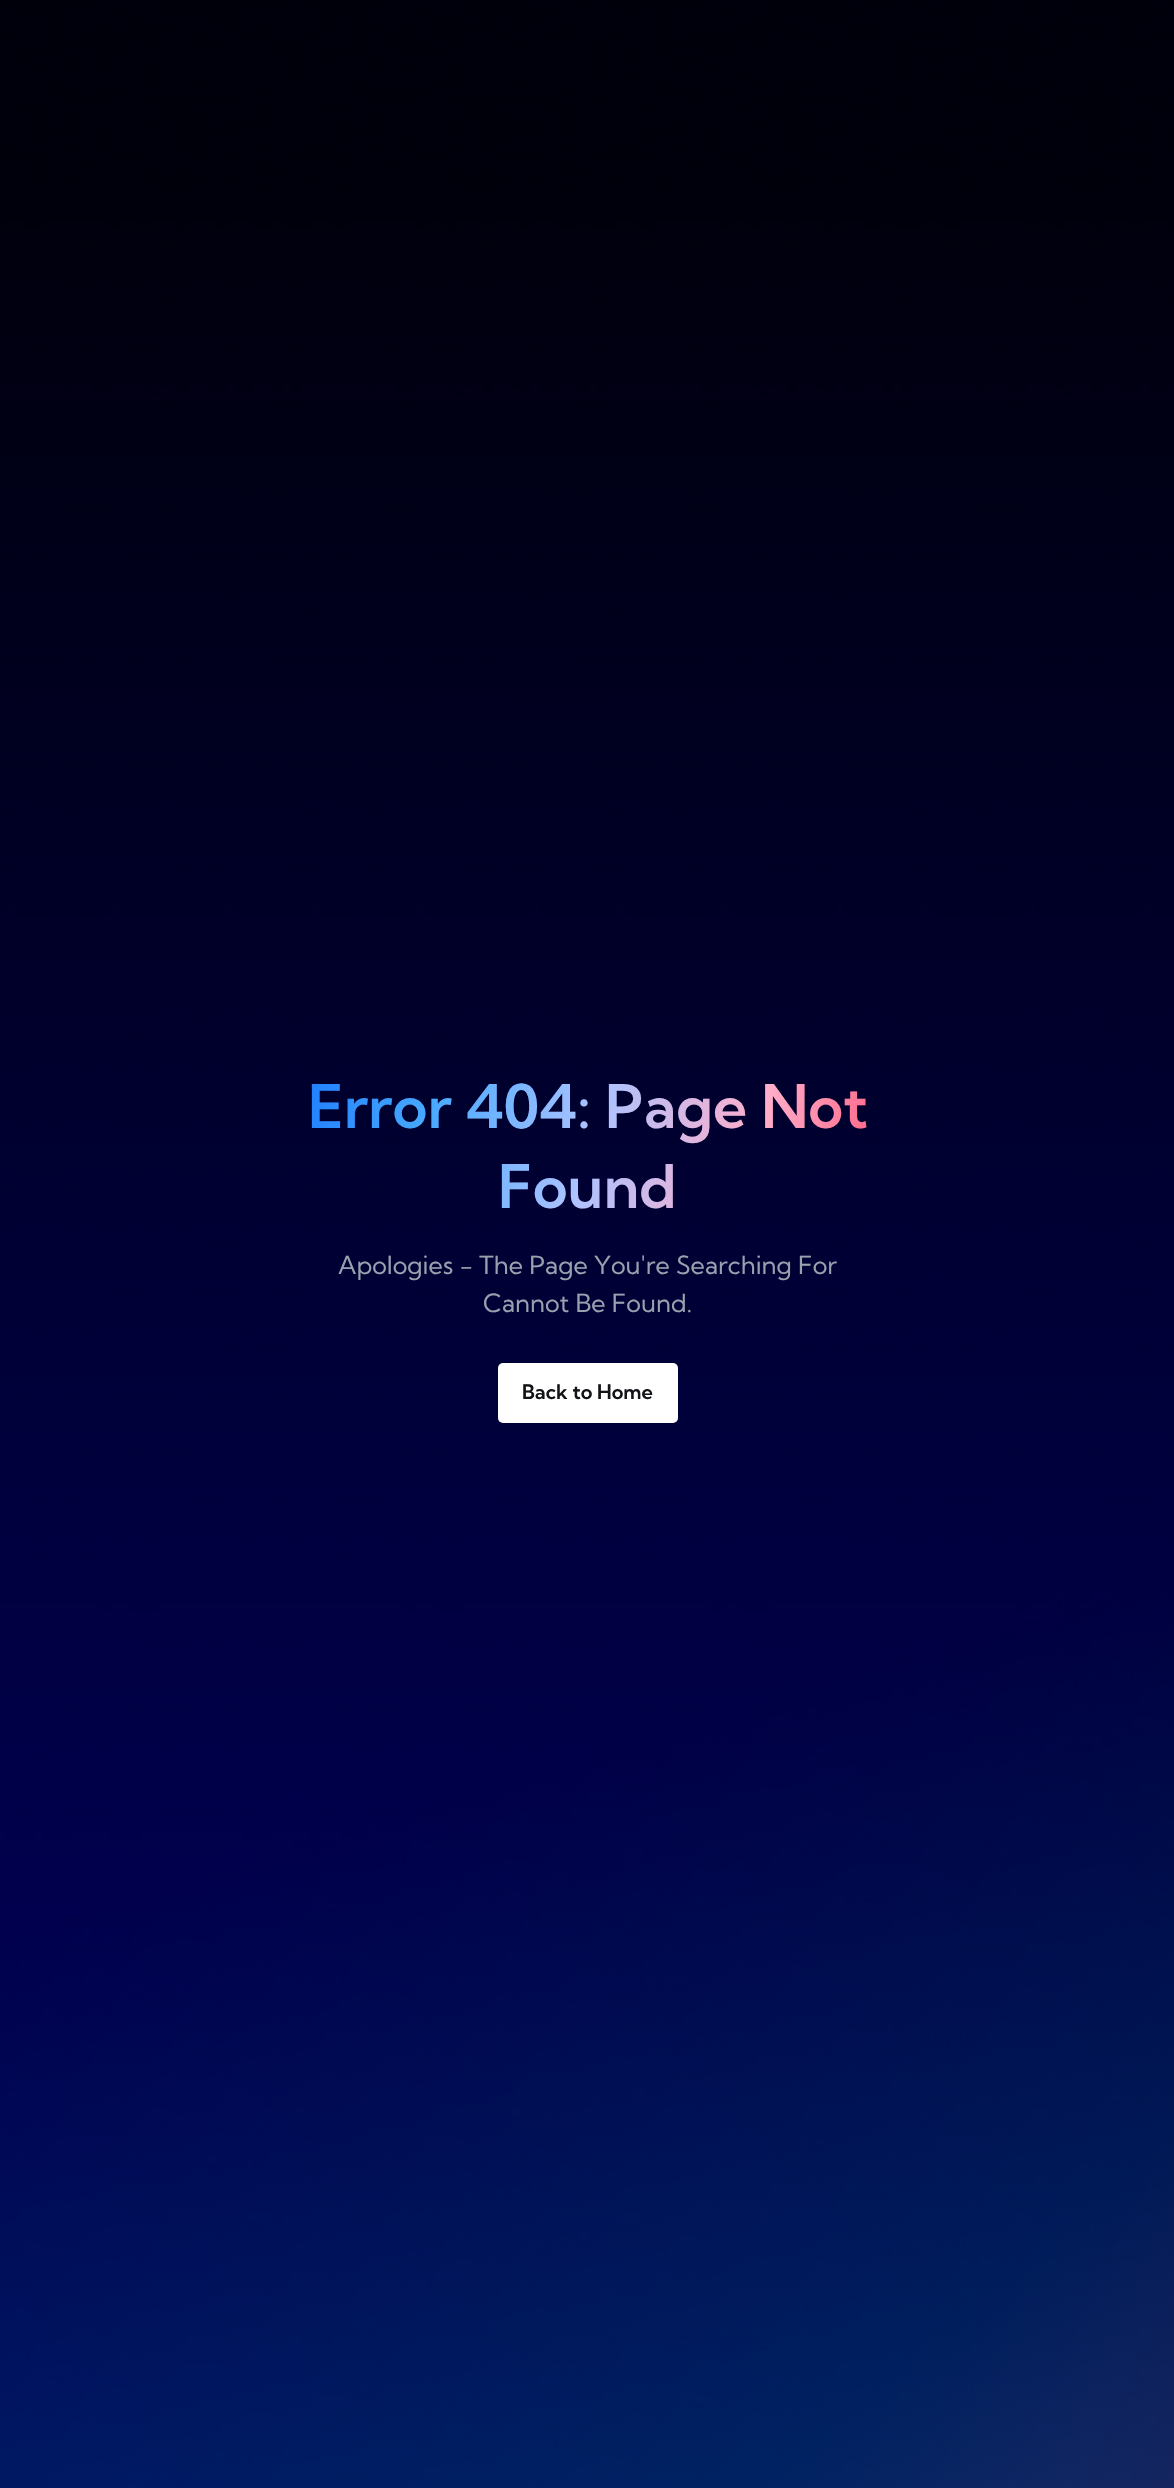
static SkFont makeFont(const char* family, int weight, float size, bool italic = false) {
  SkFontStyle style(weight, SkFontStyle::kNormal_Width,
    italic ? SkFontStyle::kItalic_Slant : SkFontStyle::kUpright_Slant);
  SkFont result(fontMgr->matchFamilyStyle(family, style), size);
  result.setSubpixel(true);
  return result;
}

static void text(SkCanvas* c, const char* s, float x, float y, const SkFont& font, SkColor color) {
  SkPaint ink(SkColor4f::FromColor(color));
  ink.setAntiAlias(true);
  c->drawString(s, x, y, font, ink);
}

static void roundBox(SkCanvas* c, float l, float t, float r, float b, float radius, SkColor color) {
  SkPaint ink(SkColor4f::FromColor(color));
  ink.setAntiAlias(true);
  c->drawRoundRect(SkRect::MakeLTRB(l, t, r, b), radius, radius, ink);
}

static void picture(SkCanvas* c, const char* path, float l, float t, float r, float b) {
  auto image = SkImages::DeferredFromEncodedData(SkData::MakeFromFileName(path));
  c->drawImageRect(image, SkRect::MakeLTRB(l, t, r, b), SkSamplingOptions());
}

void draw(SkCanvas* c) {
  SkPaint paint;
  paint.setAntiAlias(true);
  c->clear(0xffffffff);
  picture(c, "img_01.png", 0, 0, 1174, 2488);
  SkFont face1 = makeFont("Kumbh Sans", 600, 60);
  {
    const SkColor colors[] = {0xff1472ff, 0xff47a9ff, 0xffadc3ff, 0xffffadc9, 0xffff476b};
    const float stops[] = {0, 0.25f, 0.5f, 0.75f, 1};
    const SkPoint ends[] = {{269, 1067}, {906, 1227}};
    paint.setShader(SkGradientShader::MakeLinear(ends, colors, stops, 5, SkTileMode::kClamp));
    paint.setAlpha(255);
  }
  c->drawString("Error 404: Page Not", 308, 1128, face1, paint);
  c->drawString("Found", 498, 1208, face1, paint);
  SkFont face2 = makeFont("Kumbh Sans", 400, 25);
  text(c, "Apologies - The Page You're Searching For", 338, 1274, face2, 0xff98a1ae);
  text(c, "Cannot Be Found.", 483, 1312, face2, 0xff98a1ae);
  roundBox(c, 498, 1363, 678, 1423, 5, 0xffffffff);
  SkFont face3 = makeFont("Kumbh Sans", 600, 20);
  text(c, "Back to Home", 522, 1399, face3, 0xff121417);
}
